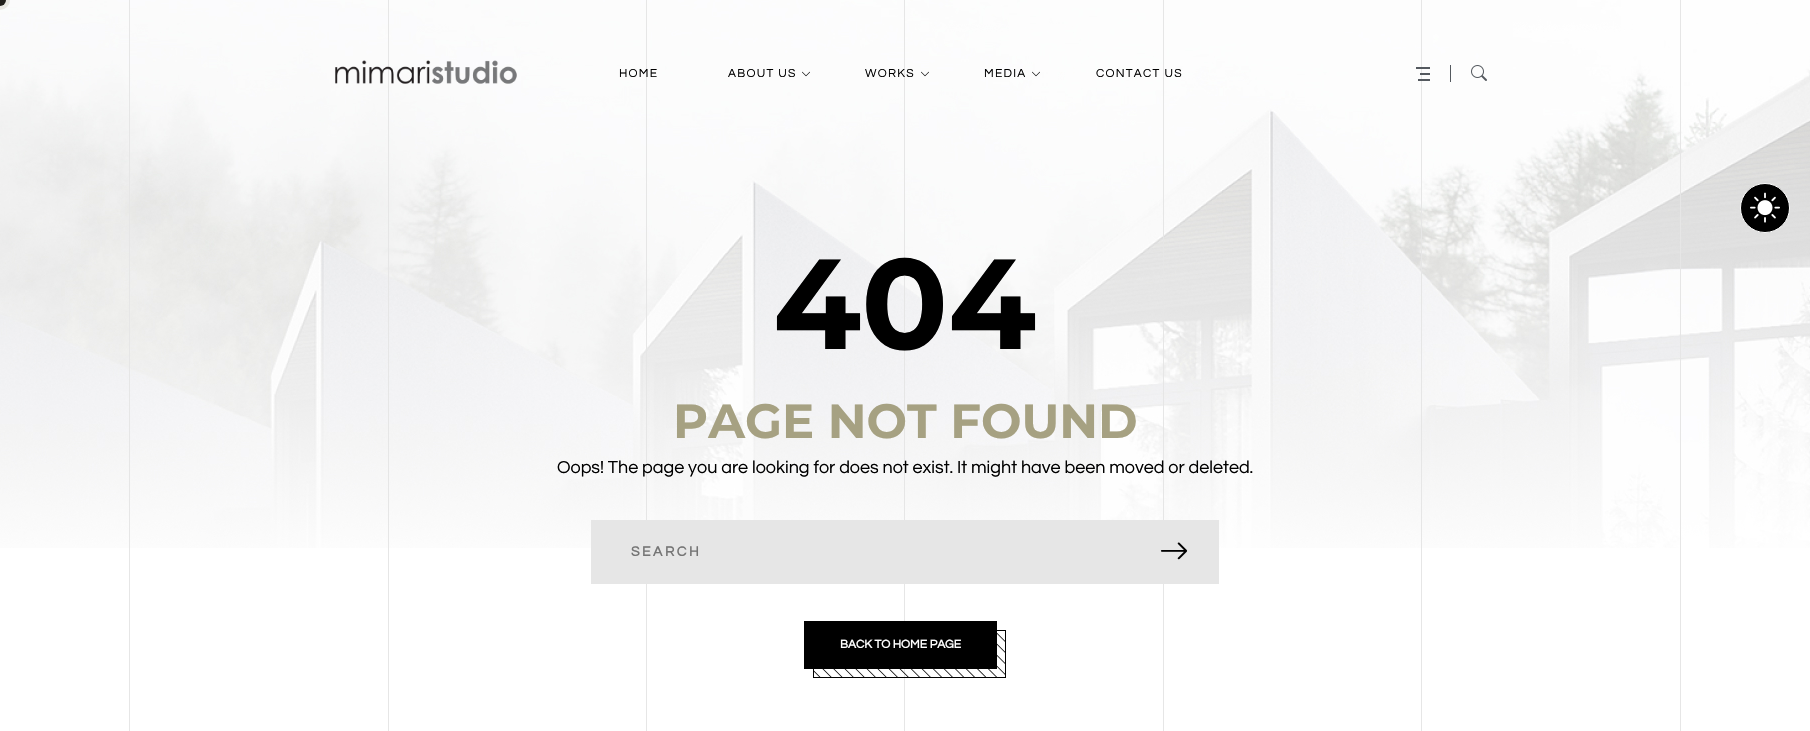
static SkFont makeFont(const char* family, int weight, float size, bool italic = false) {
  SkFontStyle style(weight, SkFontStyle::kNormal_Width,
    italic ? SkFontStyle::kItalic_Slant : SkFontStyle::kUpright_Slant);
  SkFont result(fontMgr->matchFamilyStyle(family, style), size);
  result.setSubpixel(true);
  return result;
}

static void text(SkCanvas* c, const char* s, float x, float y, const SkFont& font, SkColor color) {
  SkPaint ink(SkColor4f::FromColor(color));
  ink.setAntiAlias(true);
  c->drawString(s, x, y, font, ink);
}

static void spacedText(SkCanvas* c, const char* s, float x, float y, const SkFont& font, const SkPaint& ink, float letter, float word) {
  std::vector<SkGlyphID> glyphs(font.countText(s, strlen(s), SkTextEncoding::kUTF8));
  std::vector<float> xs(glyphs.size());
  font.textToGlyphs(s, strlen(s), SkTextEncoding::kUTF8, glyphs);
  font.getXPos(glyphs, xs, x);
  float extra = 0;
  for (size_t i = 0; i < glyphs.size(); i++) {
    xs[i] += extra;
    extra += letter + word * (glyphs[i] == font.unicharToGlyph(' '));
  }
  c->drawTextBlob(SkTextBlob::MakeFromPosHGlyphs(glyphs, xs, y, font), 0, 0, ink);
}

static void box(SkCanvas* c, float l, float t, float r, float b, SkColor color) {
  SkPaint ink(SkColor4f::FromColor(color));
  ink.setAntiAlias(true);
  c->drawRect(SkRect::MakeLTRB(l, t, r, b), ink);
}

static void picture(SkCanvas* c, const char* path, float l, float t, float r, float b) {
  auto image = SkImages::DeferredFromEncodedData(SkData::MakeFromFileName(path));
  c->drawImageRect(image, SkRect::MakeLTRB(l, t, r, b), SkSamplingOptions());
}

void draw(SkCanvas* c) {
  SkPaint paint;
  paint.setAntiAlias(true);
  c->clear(0xffffffff);
  picture(c, "img_06.png", 0, 0, 1810, 548);
  paint.setColor(0xff000000);
  c->drawCircle(0, 0, 6, paint);
  paint.setColor(0x33a6a182);
  c->drawCircle(0, 0, 10, paint);
  box(c, 388, 0, 389, 731, 0xffe6e6e6);
  picture(c, "img_01.png", 335, 60, 517, 84);
  box(c, 646, 0, 647, 731, 0xffe6e6e6);
  SkFont face1 = makeFont("Questrial", 400, 12);
  paint.setColor(0xff000000);
  spacedText(c, "HOME", 619, 77, face1, paint, 1.25f, 0);
  spacedText(c, "ABOUT US", 728, 77, face1, paint, 1.25f, 0);
  picture(c, "img_02.png", 802, 71, 810, 77);
  box(c, 904, 0, 905, 731, 0xffe6e6e6);
  spacedText(c, "WORKS", 865, 77, face1, paint, 1.25f, 0);
  picture(c, "img_02.png", 921, 71, 929, 77);
  spacedText(c, "MEDIA", 984, 77, face1, paint, 1.25f, 0);
  picture(c, "img_03.png", 1032, 71, 1040, 77);
  box(c, 1163, 0, 1164, 731, 0xffe6e6e6);
  spacedText(c, "CONTACT US", 1096, 77, face1, paint, 1.25f, 0);
  box(c, 1421, 0, 1422, 731, 0xffe6e6e6);
  box(c, 1416, 67, 1430, 69, 0xff54595f);
  box(c, 1420, 73, 1430, 75, 0xff54595f);
  box(c, 1418, 79, 1430, 81, 0xff54595f);
  box(c, 1450, 65, 1451, 82, 0xff54595f);
  picture(c, "img_04.png", 1471, 65, 1487, 81);
  c->drawCircle(1765, 208, 24.5f, paint);
  paint.setStyle(SkPaint::kStroke_Style);
  paint.setStrokeWidth(1);
  paint.setColor(0xffffffff);
  c->drawCircle(1765, 208, 24.5f, paint);
  picture(c, "img_05.png", 1750, 192, 1780, 223);
  box(c, 129, 0, 130, 731, 0xffe6e6e6);
  box(c, 1680, 0, 1681, 731, 0xffe6e6e6);
  SkFont face2 = makeFont("Montserrat", 700, 128);
  text(c, "404", 773, 349, face2, 0xff000000);
  SkFont face3 = makeFont("Montserrat", 700, 48);
  text(c, "PAGE NOT FOUND", 673, 438, face3, 0xffa6a182);
  SkFont face4 = makeFont("Questrial", 400, 18);
  text(c, "Oops! The page you are looking for does not exist. It might have been moved or deleted.", 557, 473, face4, 0xff000000);
  box(c, 591, 520, 1219, 584, 0xffe6e6e6);
  SkFont face5 = makeFont("Questrial", 700, 14);
  paint.setStyle(SkPaint::kFill_Style);
  paint.setColor(0xff757575);
  spacedText(c, "SEARCH", 631, 556, face5, paint, 2.5f, 0);
  picture(c, "img_07.png", 1160, 542, 1188, 560);
  paint.setStyle(SkPaint::kStroke_Style);
  paint.setColor(0xff000000);
  c->drawRect(SkRect::MakeLTRB(813.5f, 630.5f, 1005.5f, 677.5f), paint);
  picture(c, "img_08.png", 814, 633, 1005, 677);
  box(c, 804, 621, 997, 669, 0xff000000);
  SkFont face6 = makeFont("Questrial", 700, 12);
  text(c, "BACK TO HOME PAGE", 840, 648, face6, 0xffffffff);
}
